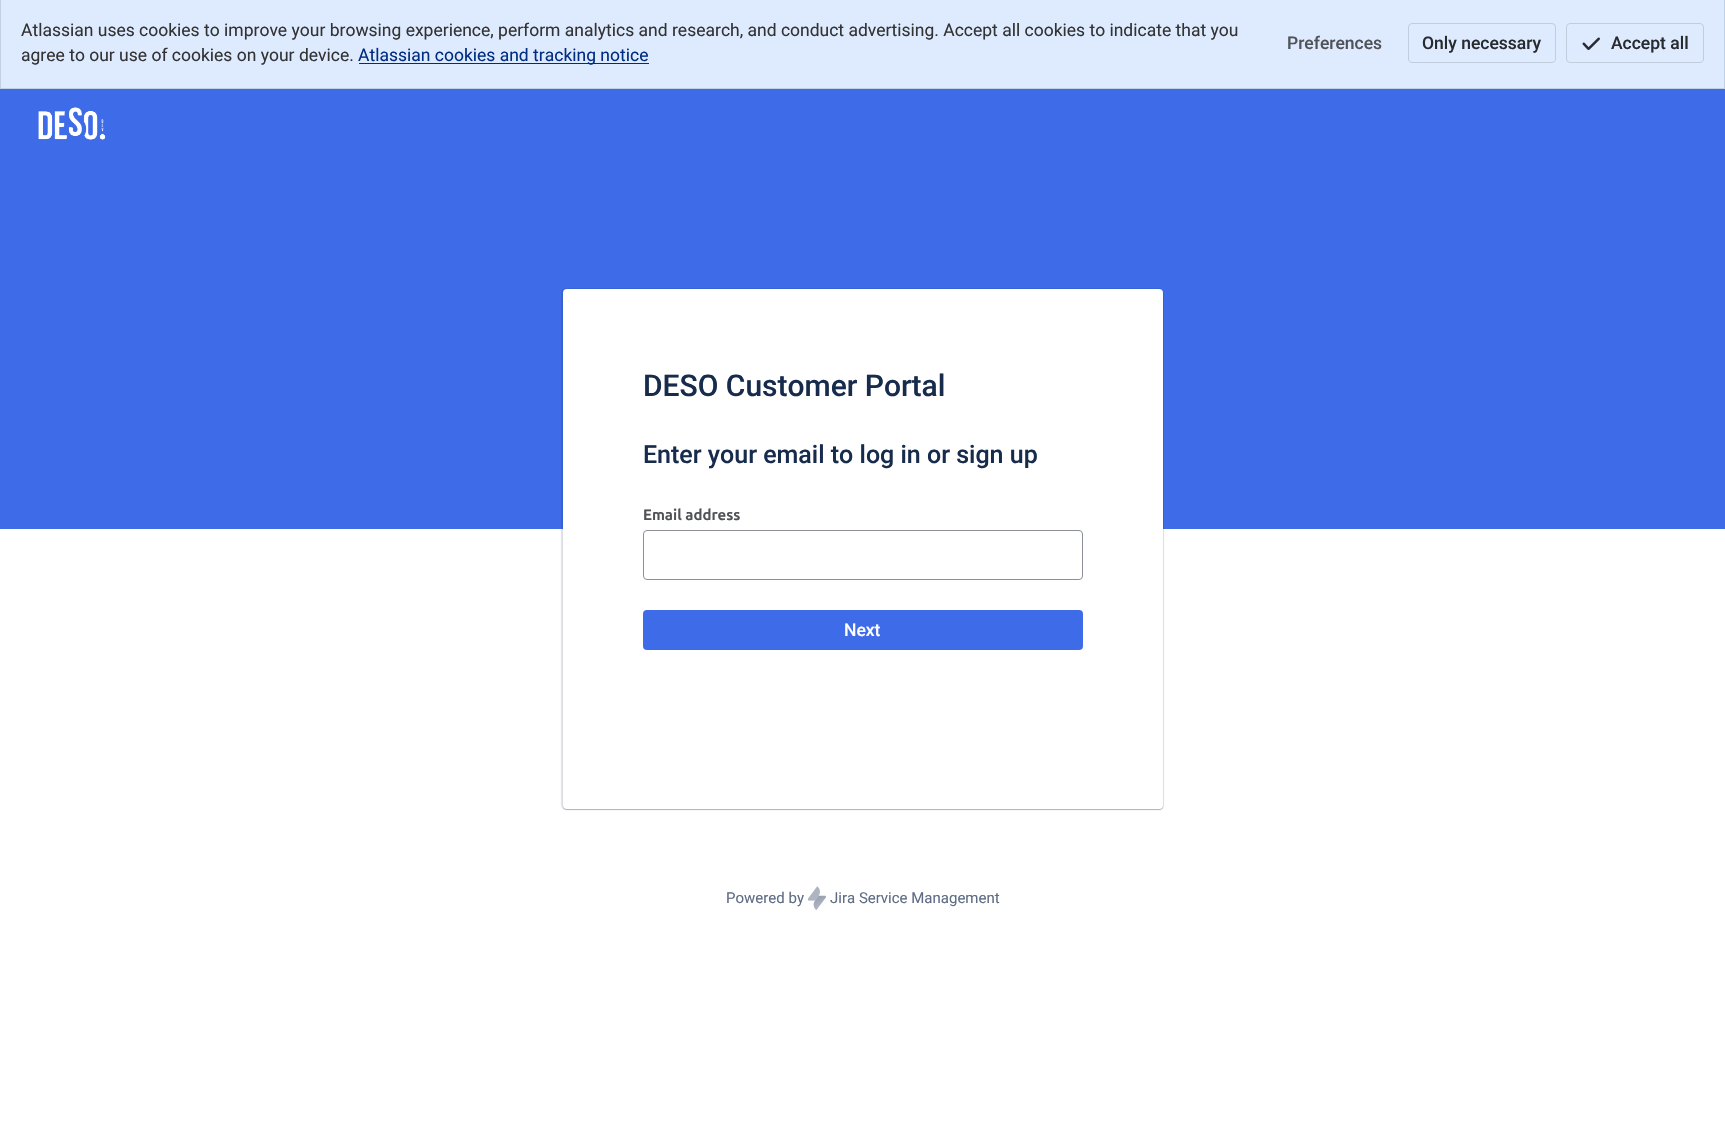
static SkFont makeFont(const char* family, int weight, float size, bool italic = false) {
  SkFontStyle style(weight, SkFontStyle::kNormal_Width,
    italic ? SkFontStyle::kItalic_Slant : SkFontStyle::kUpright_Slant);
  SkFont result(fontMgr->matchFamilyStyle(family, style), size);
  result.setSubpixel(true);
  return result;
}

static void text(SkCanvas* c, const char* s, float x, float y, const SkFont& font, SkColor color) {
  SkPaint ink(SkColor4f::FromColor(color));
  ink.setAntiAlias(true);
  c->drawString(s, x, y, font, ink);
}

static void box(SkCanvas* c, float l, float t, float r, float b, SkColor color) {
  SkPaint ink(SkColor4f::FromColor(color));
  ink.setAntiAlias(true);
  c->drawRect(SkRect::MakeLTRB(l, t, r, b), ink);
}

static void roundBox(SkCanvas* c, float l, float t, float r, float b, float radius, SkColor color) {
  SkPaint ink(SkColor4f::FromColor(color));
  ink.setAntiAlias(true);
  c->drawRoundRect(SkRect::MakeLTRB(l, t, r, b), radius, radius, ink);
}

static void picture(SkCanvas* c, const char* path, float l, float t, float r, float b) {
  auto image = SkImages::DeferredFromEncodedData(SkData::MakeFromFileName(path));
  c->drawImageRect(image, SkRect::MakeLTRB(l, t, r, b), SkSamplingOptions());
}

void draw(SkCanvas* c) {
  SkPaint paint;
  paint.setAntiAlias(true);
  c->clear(0xffffffff);
  paint.setColor(0xffdeebff);
  c->drawRect(SkRect::MakeLTRB(0.5f, -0.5f, 1724.5f, 88.5f), paint);
  paint.setStyle(SkPaint::kStroke_Style);
  paint.setStrokeWidth(1);
  paint.setColor(0xffc2d0e6);
  c->drawRect(SkRect::MakeLTRB(0.5f, -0.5f, 1724.5f, 88.5f), paint);
  SkFont face1 = makeFont("Roboto", 400, 17.5f);
  text(c, "Atlassian uses cookies to improve your browsing experience, perform analytics and research, and conduct advertising. Accept all cookies to indicate that you", 21, 36, face1, 0xff333333);
  text(c, "agree to our use of cookies on your device.", 21, 61, face1, 0xff333333);
  box(c, 359, 63, 649, 64, 0xff002c82);
  text(c, "Atlassian cookies and tracking notice", 358, 61, face1, 0xff002c82);
  SkFont face2 = makeFont("Roboto", 500, 17.5f);
  text(c, "Preferences", 1287, 49, face2, 0xff505258);
  paint.setColor(0xffc0cddd);
  c->drawRoundRect(SkRect::MakeLTRB(1408.5f, 23.5f, 1555.5f, 62.5f), 3.5f, 3.5f, paint);
  text(c, "Only necessary", 1422, 49, face2, 0xff292a2e);
  picture(c, "img_01.png", 1582, 37, 1600, 50);
  c->drawRoundRect(SkRect::MakeLTRB(1566.5f, 23.5f, 1703.5f, 62.5f), 3.5f, 3.5f, paint);
  text(c, "Accept all", 1611, 49, face2, 0xff292a2e);
  box(c, 0, 89, 1725, 529, 0xff3e6ce9);
  picture(c, "img_02.png", 38, 107, 106, 140);
  paint.setStyle(SkPaint::kFill_Style);
  paint.setColor(0x21091e42);
  paint.setMaskFilter(SkMaskFilter::MakeBlur(kNormal_SkBlurStyle, 0.5f));
  c->drawRoundRect(SkRect::MakeLTRB(561, 288, 1164, 810), 5, 5, paint);
  paint.setMaskFilter(nullptr);
  paint.setColor(0x40091e42);
  paint.setMaskFilter(SkMaskFilter::MakeBlur(kNormal_SkBlurStyle, 0.5f));
  c->drawRoundRect(SkRect::MakeLTRB(563, 290, 1163, 810), 4, 4, paint);
  paint.setMaskFilter(nullptr);
  roundBox(c, 563, 289, 1163, 809, 4, 0xffffffff);
  SkFont face3 = makeFont("Roboto", 500, 30);
  text(c, "DESO Customer Portal", 643, 396, face3, 0xff172b4d);
  SkFont face4 = makeFont("Roboto", 500, 25);
  text(c, "Enter your email to log in or sign up", 643, 463, face4, 0xff172b4d);
  SkFont face5 = makeFont("Ubuntu", 700, 15);
  text(c, "Email address", 643, 520, face5, 0xff505258);
  paint.setStyle(SkPaint::kStroke_Style);
  paint.setColor(0xff8c8f97);
  c->drawRoundRect(SkRect::MakeLTRB(643.5f, 530.5f, 1082.5f, 579.5f), 3.5f, 3.5f, paint);
  roundBox(c, 643, 610, 1083, 650, 4, 0xff3e6ce9);
  text(c, "Next", 844, 636, face2, 0xffffffff);
  SkFont face6 = makeFont("Roboto", 400, 15);
  text(c, "Powered by", 726, 903, face6, 0xff5e6c84);
  picture(c, "img_03.png", 808, 886, 826, 910);
  text(c, "Jira Service Management", 830, 903, face6, 0xff5e6c84);
}
